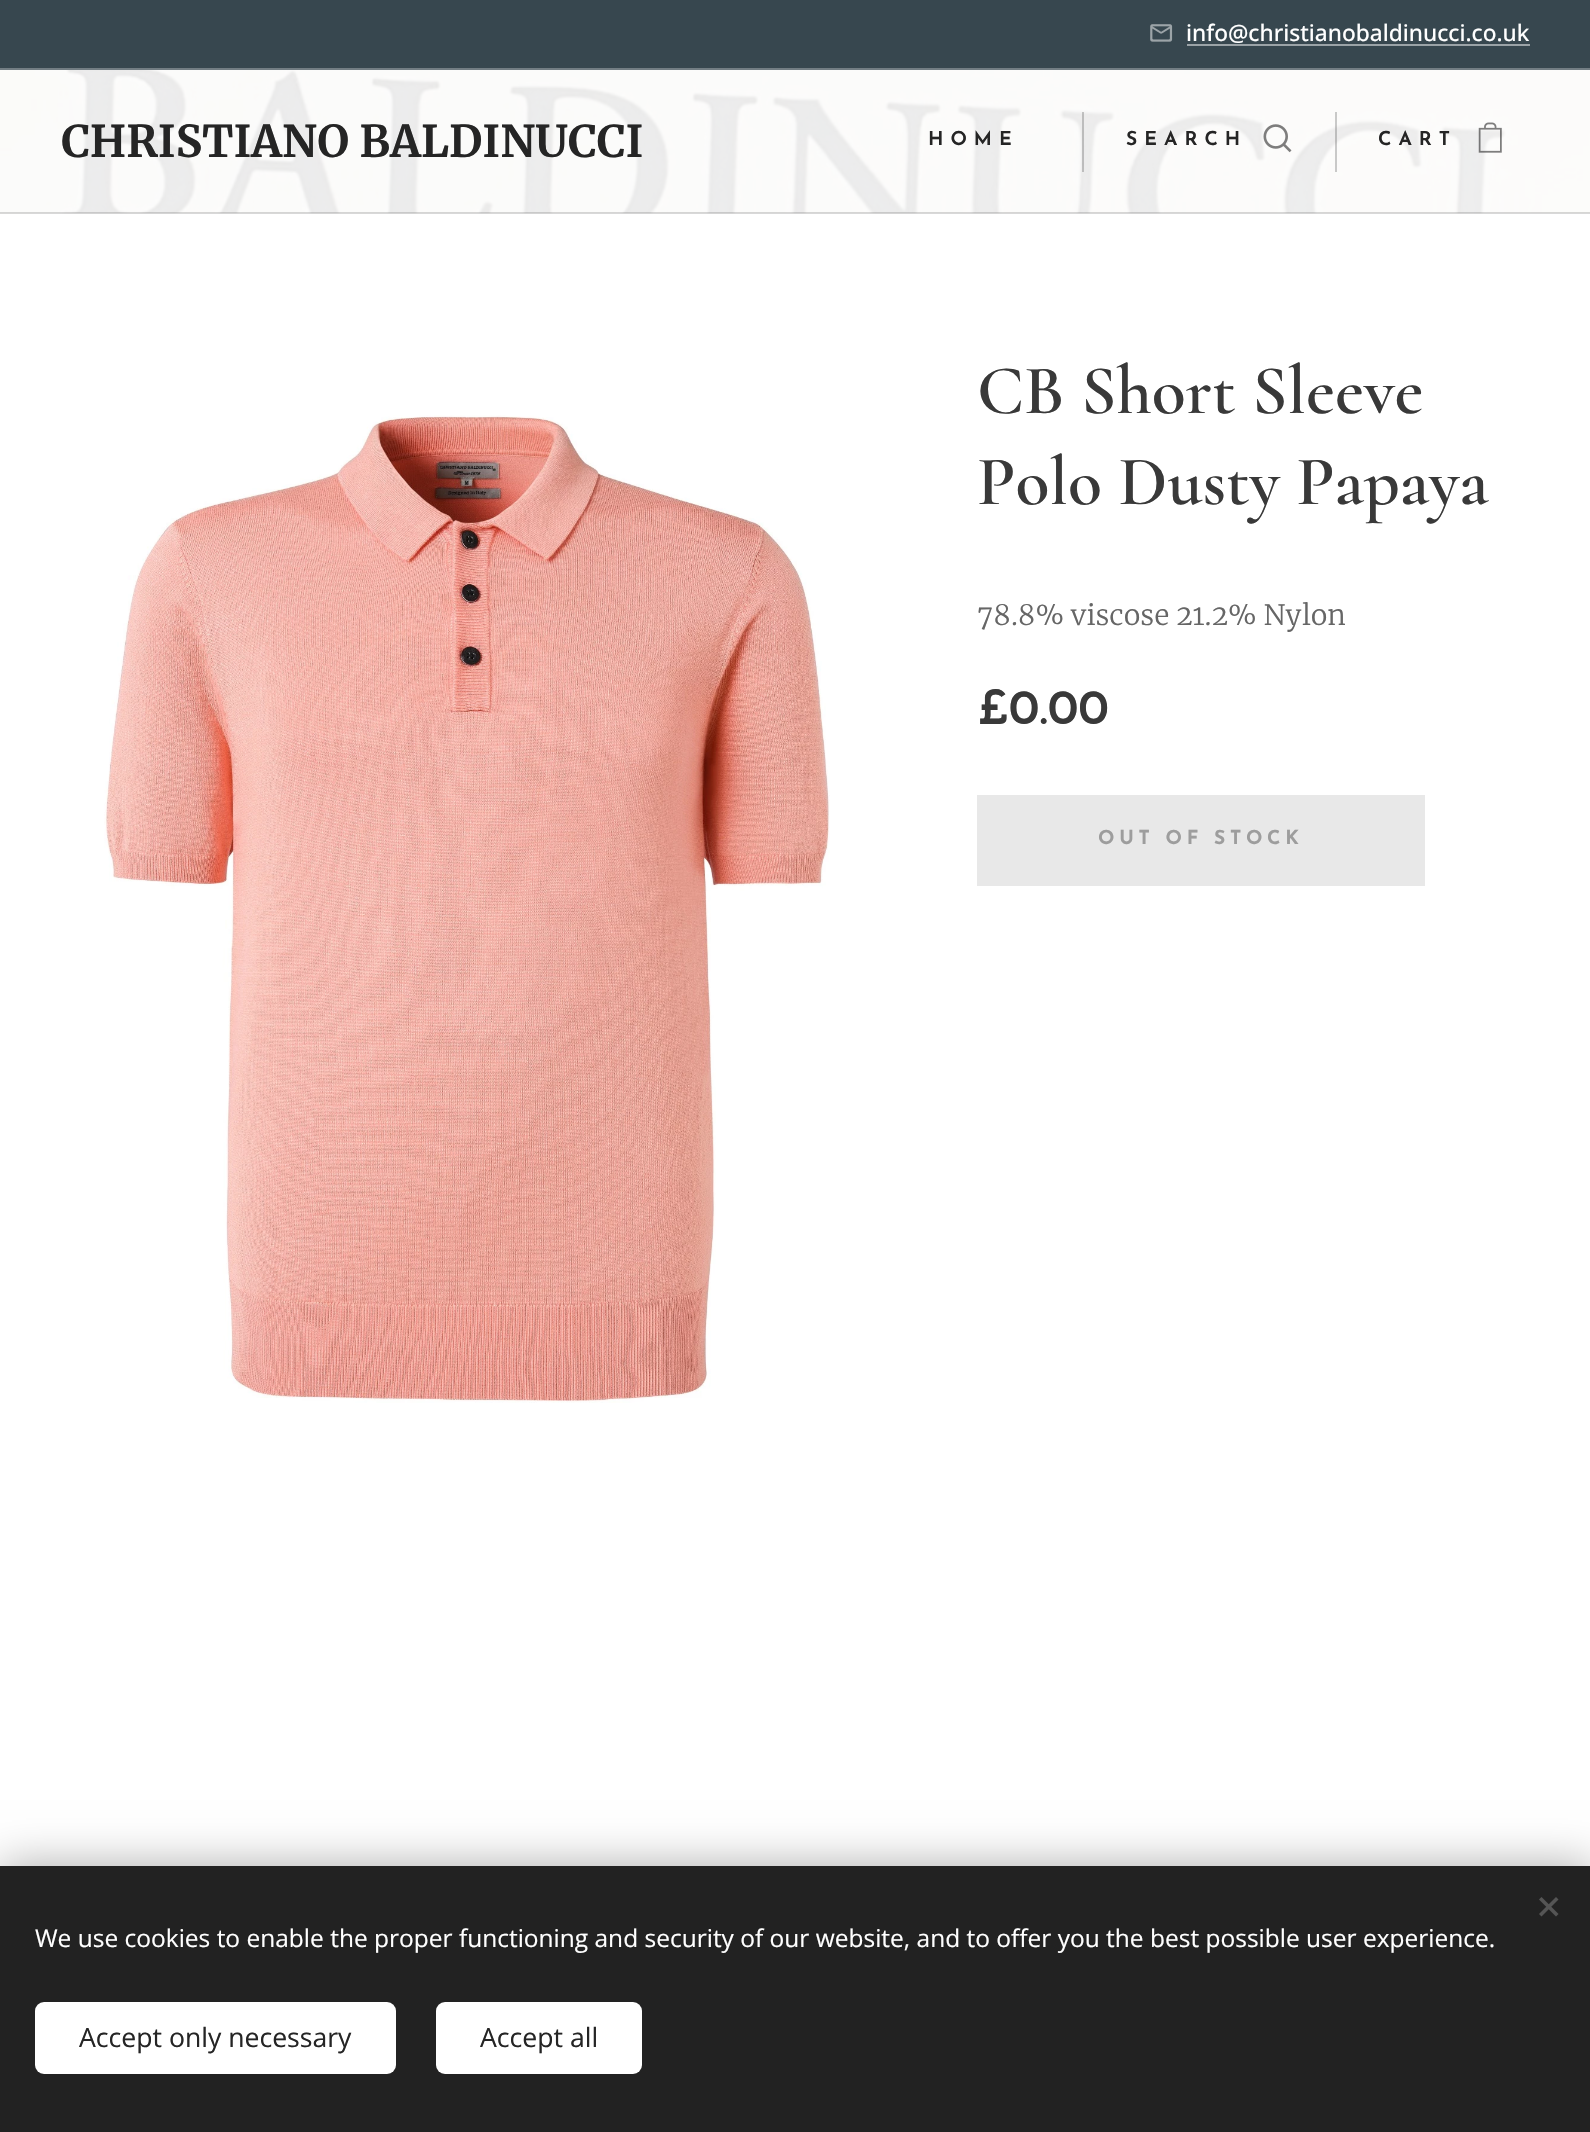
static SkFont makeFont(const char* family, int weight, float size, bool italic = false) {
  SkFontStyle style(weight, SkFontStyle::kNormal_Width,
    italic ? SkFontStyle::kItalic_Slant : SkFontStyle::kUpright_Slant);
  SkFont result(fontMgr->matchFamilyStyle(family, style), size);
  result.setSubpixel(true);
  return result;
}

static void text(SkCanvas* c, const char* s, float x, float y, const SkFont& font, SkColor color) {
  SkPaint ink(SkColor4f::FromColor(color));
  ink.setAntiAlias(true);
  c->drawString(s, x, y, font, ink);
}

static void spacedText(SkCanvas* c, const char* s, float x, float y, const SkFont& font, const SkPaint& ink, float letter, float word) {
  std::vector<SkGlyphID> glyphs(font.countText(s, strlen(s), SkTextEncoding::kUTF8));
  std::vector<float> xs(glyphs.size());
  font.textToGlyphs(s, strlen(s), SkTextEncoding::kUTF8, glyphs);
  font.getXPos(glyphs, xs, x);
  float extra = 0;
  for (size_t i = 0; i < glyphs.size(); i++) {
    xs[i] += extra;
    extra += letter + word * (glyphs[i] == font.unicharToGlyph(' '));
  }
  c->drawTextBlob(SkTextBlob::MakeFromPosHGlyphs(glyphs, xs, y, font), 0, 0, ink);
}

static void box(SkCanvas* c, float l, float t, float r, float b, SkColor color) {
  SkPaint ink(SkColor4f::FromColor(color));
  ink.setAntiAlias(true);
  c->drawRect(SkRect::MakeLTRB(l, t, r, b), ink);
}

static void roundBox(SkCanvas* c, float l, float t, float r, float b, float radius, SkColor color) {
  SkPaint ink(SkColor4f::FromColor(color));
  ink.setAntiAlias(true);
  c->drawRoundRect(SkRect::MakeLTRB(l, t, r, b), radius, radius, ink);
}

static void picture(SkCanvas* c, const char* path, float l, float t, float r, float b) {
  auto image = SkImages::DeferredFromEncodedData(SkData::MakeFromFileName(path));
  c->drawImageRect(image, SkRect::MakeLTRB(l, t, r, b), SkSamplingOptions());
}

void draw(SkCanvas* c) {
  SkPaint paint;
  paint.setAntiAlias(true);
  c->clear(0xffffffff);
  box(c, 0, 0, 1590, 68, 0xff37474f);
  picture(c, "img_01.png", 1150, 24, 1173, 42);
  SkFont face1 = makeFont("Open Sans", 500, 22.75f);
  text(c, "info@christianobaldinucci.co.uk", 1186, 41, face1, 0xffffffff);
  box(c, 1187, 44, 1530, 46, 0xff9ba3a7);
  box(c, 0, 68, 1590, 70, 0xff737e84);
  picture(c, "img_02.png", 0, 70, 1590, 214);
  SkFont face2 = makeFont("Merriweather", 700, 43.75f);
  text(c, "CHRISTIANO BALDINUCCI", 61, 157, face2, 0xff252525);
  SkFont face3 = makeFont("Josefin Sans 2", 600, 19.25f);
  paint.setColor(0xff252525);
  spacedText(c, "HOME", 928, 145, face3, paint, 7, 0);
  box(c, 1082, 112, 1084, 172, 0x33000000);
  spacedText(c, "SEARCH", 1126, 145, face3, paint, 7, 0);
  picture(c, "img_03.png", 1263, 124, 1292, 153);
  box(c, 1335, 112, 1337, 172, 0x33000000);
  spacedText(c, "CART", 1378, 145, face3, paint, 7, 0);
  picture(c, "img_04.png", 1478, 122, 1502, 153);
  box(c, 0, 212, 1590, 214, 0x26000000);
  picture(c, "img_05.png", 104, 415, 830, 1403);
  SkFont face4 = makeFont("Cormorant", 600, 70);
  text(c, "CB Short Sleeve", 977, 413, face4, 0xff393939);
  text(c, "Polo Dusty Papaya", 977, 504, face4, 0xff393939);
  SkFont face5 = makeFont("Merriweather", 300, 28);
  text(c, "78.8% viscose 21.2% Nylon", 977, 625, face5, 0xff666666);
  SkFont face6 = makeFont("Josefin Sans", 600, 49);
  text(c, "£0.00", 977, 724, face6, 0xff393939);
  box(c, 977, 795, 1425, 886, 0xffe8e8e8);
  SkFont face7 = makeFont("Josefin Sans", 700, 19.25f);
  paint.setColor(0xff9d9d9d);
  spacedText(c, "OUT OF STOCK", 1098, 844, face7, paint, 4.75f, 0);
  paint.setColor(0x54000000);
  paint.setMaskFilter(SkMaskFilter::MakeBlur(kNormal_SkBlurStyle, 22));
  c->drawRect(SkRect::MakeLTRB(0, 1866, 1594, 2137), paint);
  paint.setMaskFilter(nullptr);
  box(c, 0, 1866, 1590, 2132, 0xff222222);
  paint.setColor(0xff555555);
  c->drawPath(SkPathBuilder().moveTo(1539, 1914).lineTo(1556, 1897).lineTo(1558.5f, 1899.5f).lineTo(1541.5f, 1916.5f).close().detach(), paint);
  c->drawPath(SkPathBuilder().moveTo(1541.5f, 1897).lineTo(1558.5f, 1914).lineTo(1556, 1916.5f).lineTo(1539, 1899.5f).close().detach(), paint);
  SkFont face8 = makeFont("Open Sans", 400, 24.5f);
  text(c, "We use cookies to enable the proper functioning and security of our website, and to offer you the best possible user experience.", 35, 1947, face8, 0xffffffff);
  roundBox(c, 35, 2002, 396, 2074, 9, 0xffffffff);
  SkFont face9 = makeFont("Open Sans", 400, 26.6f);
  text(c, "Accept only necessary", 79, 2047, face9, 0xff252525);
  roundBox(c, 436, 2002, 642, 2074, 9, 0xffffffff);
  text(c, "Accept all", 480, 2047, face9, 0xff252525);
}
